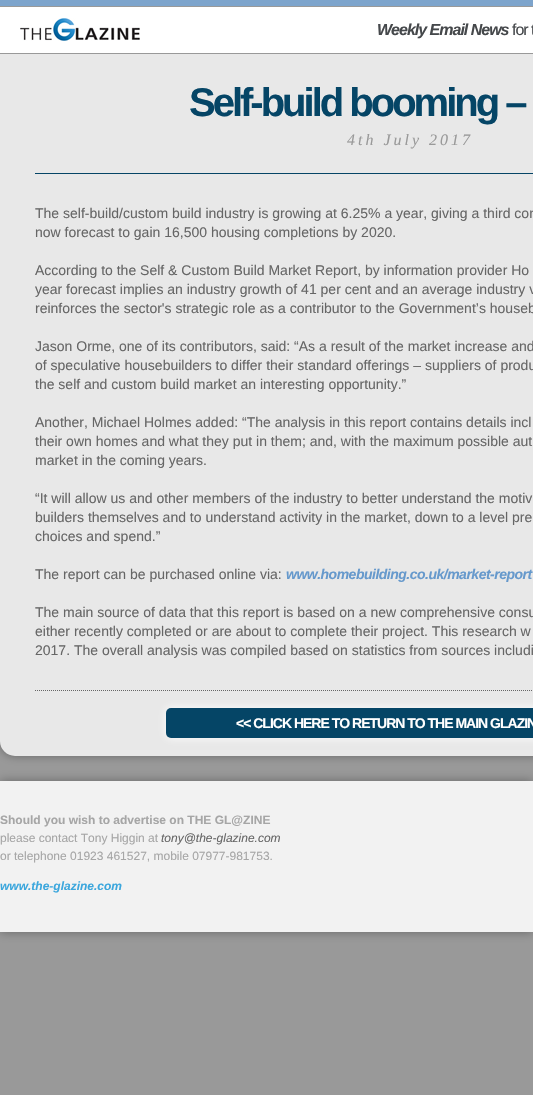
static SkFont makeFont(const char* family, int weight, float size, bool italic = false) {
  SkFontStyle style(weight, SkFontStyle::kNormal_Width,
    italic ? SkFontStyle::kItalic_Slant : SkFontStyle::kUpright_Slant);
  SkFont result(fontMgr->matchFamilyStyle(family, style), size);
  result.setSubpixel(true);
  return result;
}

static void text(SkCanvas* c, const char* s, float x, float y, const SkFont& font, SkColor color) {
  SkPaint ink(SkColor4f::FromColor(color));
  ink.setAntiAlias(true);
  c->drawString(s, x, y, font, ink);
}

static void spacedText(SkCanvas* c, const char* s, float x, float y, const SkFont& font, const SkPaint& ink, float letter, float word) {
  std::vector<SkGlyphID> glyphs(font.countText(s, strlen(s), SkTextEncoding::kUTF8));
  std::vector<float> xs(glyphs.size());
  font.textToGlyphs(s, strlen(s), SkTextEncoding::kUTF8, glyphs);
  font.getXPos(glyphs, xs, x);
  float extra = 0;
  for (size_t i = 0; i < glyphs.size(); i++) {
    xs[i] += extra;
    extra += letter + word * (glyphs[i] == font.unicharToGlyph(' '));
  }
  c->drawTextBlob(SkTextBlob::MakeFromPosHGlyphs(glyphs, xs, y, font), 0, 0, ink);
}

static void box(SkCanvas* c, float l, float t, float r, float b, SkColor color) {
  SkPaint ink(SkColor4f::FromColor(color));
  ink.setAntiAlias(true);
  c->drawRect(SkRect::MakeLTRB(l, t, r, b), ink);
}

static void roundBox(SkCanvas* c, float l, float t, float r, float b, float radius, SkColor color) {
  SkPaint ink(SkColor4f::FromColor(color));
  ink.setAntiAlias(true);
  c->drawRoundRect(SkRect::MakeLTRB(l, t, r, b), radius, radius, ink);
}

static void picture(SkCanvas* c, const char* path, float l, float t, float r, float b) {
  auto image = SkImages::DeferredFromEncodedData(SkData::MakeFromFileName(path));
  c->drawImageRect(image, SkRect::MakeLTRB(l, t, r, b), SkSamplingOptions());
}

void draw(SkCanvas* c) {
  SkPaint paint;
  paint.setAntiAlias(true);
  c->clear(0xff999999);
  paint.setColor(0xff666666);
  paint.setMaskFilter(SkMaskFilter::MakeBlur(kNormal_SkBlurStyle, 5));
  c->drawRoundRect(SkRect::MakeLTRB(0, 0, 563, 756), 15, 15, paint);
  paint.setMaskFilter(nullptr);
  roundBox(c, 0, 0, 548, 756, 15, 0xffe8e8e8);
  box(c, 0, 0, 533, 6, 0xff7da4cc);
  box(c, 0, 7, 533, 53, 0xffffffff);
  box(c, 0, 6, 533, 7, 0xff999999);
  box(c, 0, 53, 533, 54, 0xff999999);
  picture(c, "img_01.png", 20, 18, 140, 41);
  SkFont face1 = makeFont("Liberation Sans", 700, 16, true);
  paint.setColor(0xff45484b);
  spacedText(c, "Weekly Email News", 377, 35, face1, paint, -1, 0);
  SkFont face2 = makeFont("Liberation Sans", 400, 16);
  spacedText(c, "for t", 512, 35, face2, paint, -1, 0);
  box(c, 35, 173, 533, 174, 0xff054566);
  SkFont face3 = makeFont("Liberation Sans", 700, 40);
  paint.setColor(0xff054566);
  spacedText(c, "Self-build booming –", 189, 116, face3, paint, -3, 0);
  SkFont face4 = makeFont("Liberation Serif", 400, 16, true);
  paint.setColor(0xff999999);
  spacedText(c, "4th July 2017", 347, 145, face4, paint, 3, 0);
  paint.setStyle(SkPaint::kStroke_Style);
  paint.setStrokeWidth(1);
  paint.setColor(0xff666666);
  paint.setPathEffect(SkDashPathEffect::Make({{1, 1}}, 0));
  c->drawPath(SkPathBuilder().moveTo(35, 690.5f).lineTo(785, 690.5f).detach(), paint);
  paint.setPathEffect(nullptr);
  SkFont face5 = makeFont("Liberation Sans", 400, 14);
  text(c, "The self-build/custom build industry is growing at 6.25% a year, giving a third con", 35, 218, face5, 0xff666666);
  text(c, "now forecast to gain 16,500 housing completions by 2020.", 35, 237, face5, 0xff666666);
  text(c, "According to the Self & Custom Build Market Report, by information provider Ho", 35, 275, face5, 0xff666666);
  text(c, "year forecast implies an industry growth of 41 per cent and an average industry v", 35, 294, face5, 0xff666666);
  text(c, "reinforces the sector's strategic role as a contributor to the Government’s houseb", 35, 313, face5, 0xff666666);
  text(c, "Jason Orme, one of its contributors, said: “As a result of the market increase and", 35, 351, face5, 0xff666666);
  text(c, "of speculative housebuilders to differ their standard offerings – suppliers of produ", 35, 370, face5, 0xff666666);
  text(c, "the self and custom build market an interesting opportunity.”", 35, 389, face5, 0xff666666);
  text(c, "Another, Michael Holmes added: “The analysis in this report contains details incl", 35, 427, face5, 0xff666666);
  text(c, "their own homes and what they put in them; and, with the maximum possible aut", 35, 446, face5, 0xff666666);
  text(c, "market in the coming years.", 35, 465, face5, 0xff666666);
  text(c, "“It will allow us and other members of the industry to better understand the motiv", 35, 503, face5, 0xff666666);
  text(c, "builders themselves and to understand activity in the market, down to a level pre", 35, 522, face5, 0xff666666);
  text(c, "choices and spend.”", 35, 541, face5, 0xff666666);
  text(c, "The report can be purchased online via:", 35, 579, face5, 0xff666666);
  SkFont face6 = makeFont("Liberation Sans", 700, 14, true);
  paint.setStyle(SkPaint::kFill_Style);
  paint.setColor(0xff6699cc);
  spacedText(c, "www.homebuilding.co.uk/market-report", 286, 579, face6, paint, -0.5f, 0);
  text(c, "The main source of data that this report is based on a new comprehensive consu", 35, 617, face5, 0xff666666);
  text(c, "either recently completed or are about to complete their project. This research w", 35, 636, face5, 0xff666666);
  text(c, "2017. The overall analysis was compiled based on statistics from sources includi", 35, 655, face5, 0xff666666);
  paint.setColor(0xffffffff);
  paint.setMaskFilter(SkMaskFilter::MakeBlur(kNormal_SkBlurStyle, 5));
  c->drawRoundRect(SkRect::MakeLTRB(166, 708, 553, 738), 5, 5, paint);
  paint.setMaskFilter(nullptr);
  roundBox(c, 166, 708, 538, 738, 5, 0xff054566);
  SkFont face7 = makeFont("Liberation Sans", 700, 14);
  spacedText(c, "<< CLICK HERE TO RETURN TO THE MAIN GLAZIN", 236, 728, face7, paint, -1, 0);
  paint.setColor(0xff666666);
  paint.setMaskFilter(SkMaskFilter::MakeBlur(kNormal_SkBlurStyle, 5));
  c->drawRect(SkRect::MakeLTRB(0, 781, 533, 932), paint);
  paint.setMaskFilter(nullptr);
  box(c, 0, 781, 533, 932, 0xfff2f2f2);
  SkFont face8 = makeFont("Liberation Sans", 700, 12);
  text(c, "Should you wish to advertise on THE GL@ZINE", 0, 824, face8, 0xffa6a6a6);
  SkFont face9 = makeFont("Liberation Sans", 400, 12);
  text(c, "please contact Tony Higgin at", 0, 842, face9, 0xffa6a6a6);
  SkFont face10 = makeFont("Liberation Sans", 400, 12, true);
  text(c, "tony@the-glazine.com", 161, 842, face10, 0xff666666);
  text(c, "or telephone 01923 461527, mobile 07977-981753.", 0, 860, face9, 0xffa6a6a6);
  SkFont face11 = makeFont("Liberation Sans", 700, 12, true);
  text(c, "www.the-glazine.com", 0, 890, face11, 0xff3ca7dd);
}
